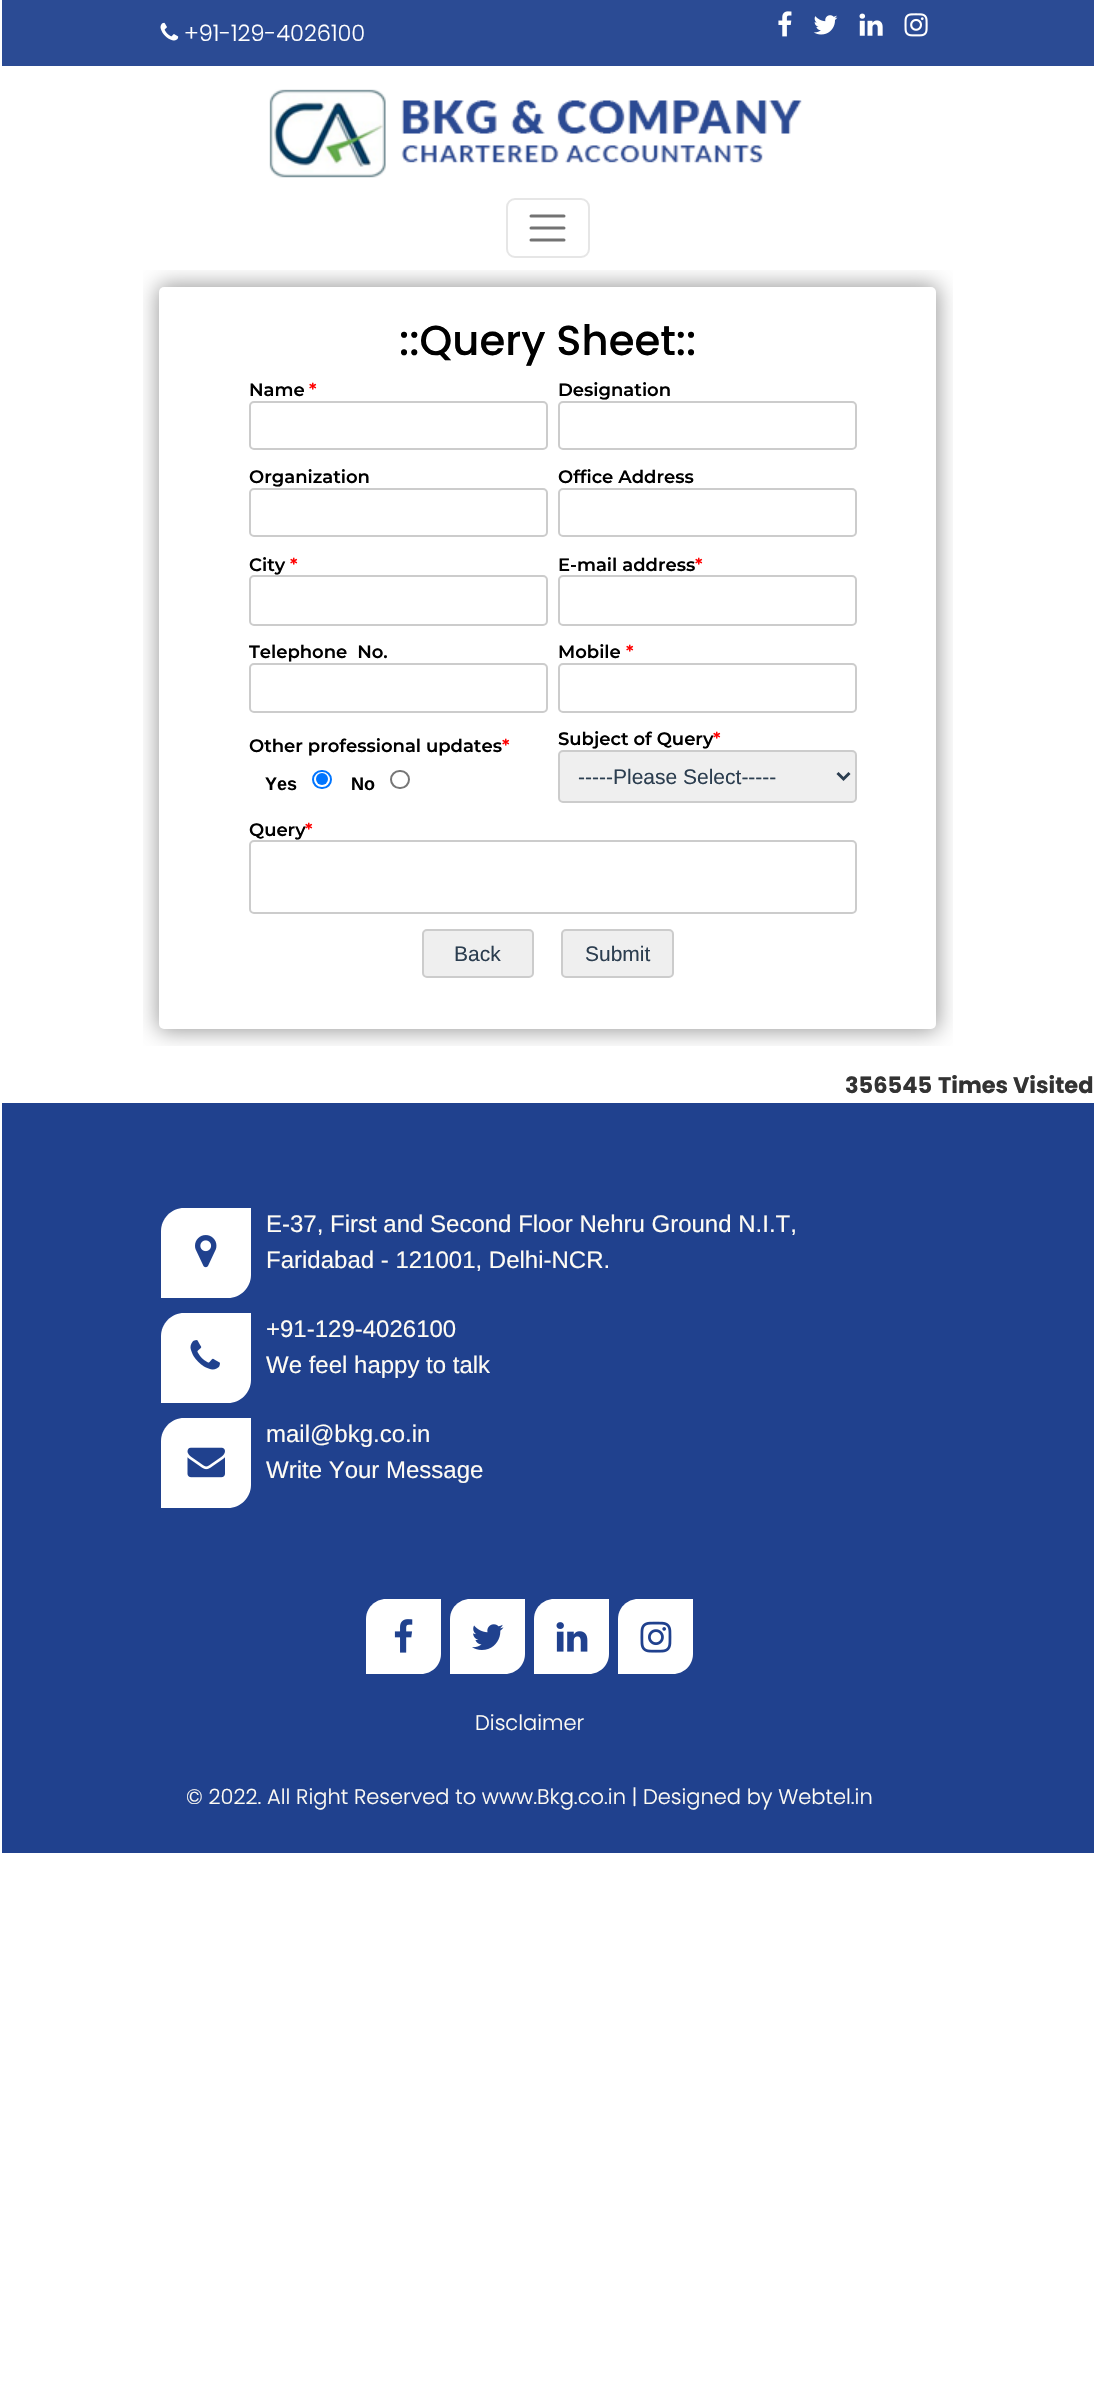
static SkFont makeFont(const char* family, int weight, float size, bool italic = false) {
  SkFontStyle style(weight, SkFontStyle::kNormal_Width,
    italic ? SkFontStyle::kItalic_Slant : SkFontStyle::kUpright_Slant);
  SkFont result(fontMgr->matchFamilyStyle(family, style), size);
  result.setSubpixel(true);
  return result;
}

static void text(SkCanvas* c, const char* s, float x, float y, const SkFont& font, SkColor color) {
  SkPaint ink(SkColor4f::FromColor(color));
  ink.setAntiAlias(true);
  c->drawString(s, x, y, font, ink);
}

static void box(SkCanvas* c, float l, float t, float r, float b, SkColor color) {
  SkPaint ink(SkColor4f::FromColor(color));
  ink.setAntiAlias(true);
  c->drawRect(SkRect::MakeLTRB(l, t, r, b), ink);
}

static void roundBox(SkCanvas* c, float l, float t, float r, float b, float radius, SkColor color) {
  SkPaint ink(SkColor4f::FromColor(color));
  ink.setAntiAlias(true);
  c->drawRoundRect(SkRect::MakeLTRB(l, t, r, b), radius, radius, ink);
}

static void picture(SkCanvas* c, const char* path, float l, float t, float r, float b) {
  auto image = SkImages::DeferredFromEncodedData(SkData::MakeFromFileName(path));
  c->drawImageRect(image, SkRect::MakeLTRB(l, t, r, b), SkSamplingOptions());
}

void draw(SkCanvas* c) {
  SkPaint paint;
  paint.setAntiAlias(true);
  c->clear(0xffffffff);
  box(c, 2, 0, 1094, 66, 0xff2b4b94);
  picture(c, "img_01.png", 160, 22, 179, 41);
  SkFont face1 = makeFont("Poppins", 300, 22.5f);
  text(c, "+91-129-4026100", 184, 41, face1, 0xffffffff);
  picture(c, "img_02.png", 778, 11, 792, 37);
  picture(c, "img_03.png", 813, 15, 838, 35);
  picture(c, "img_04.png", 859, 13, 883, 36);
  picture(c, "img_05.png", 904, 13, 928, 37);
  picture(c, "img_06.png", 269, 89, 802, 178);
  c->save();
  c->clipRect(SkRect::MakeLTRB(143, 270, 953, 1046));
  paint.setColor(0x66000000);
  paint.setMaskFilter(SkMaskFilter::MakeBlur(kNormal_SkBlurStyle, 11));
  c->drawRoundRect(SkRect::MakeLTRB(158, 285, 938, 1031), 6, 6, paint);
  paint.setMaskFilter(nullptr);
  c->restore();
  paint.setStyle(SkPaint::kStroke_Style);
  paint.setStrokeWidth(2);
  paint.setColor(0xffe6e6e6);
  c->drawRoundRect(SkRect::MakeLTRB(507, 199, 589, 257), 8, 8, paint);
  paint.setStrokeWidth(3);
  paint.setStrokeCap(SkPaint::kRound_Cap);
  paint.setColor(0xff737373);
  c->drawPath(SkPathBuilder().moveTo(531, 216).lineTo(564, 216).moveTo(531, 228).lineTo(564, 228).moveTo(531, 240).lineTo(564, 240).detach(), paint);
  roundBox(c, 159, 287, 936, 1029, 5, 0xffffffff);
  SkFont face2 = makeFont("Poppins", 500, 41.75f);
  text(c, "::Query Sheet::", 399, 355, face2, 0xff000000);
  SkFont face3 = makeFont("Montserrat", 600, 18);
  text(c, "Name", 249, 396, face3, 0xff000000);
  text(c, "*", 309, 396, face3, 0xffff0000);
  paint.setStrokeWidth(2);
  paint.setStrokeCap(SkPaint::kButt_Cap);
  paint.setColor(0xffcccccc);
  c->drawRoundRect(SkRect::MakeLTRB(250, 402, 547, 449), 4, 4, paint);
  text(c, "Designation", 558, 396, face3, 0xff000000);
  c->drawRoundRect(SkRect::MakeLTRB(559, 402, 856, 449), 4, 4, paint);
  text(c, "Organization", 249, 483, face3, 0xff000000);
  c->drawRoundRect(SkRect::MakeLTRB(250, 489, 547, 536), 4, 4, paint);
  text(c, "Office Address", 558, 483, face3, 0xff000000);
  c->drawRoundRect(SkRect::MakeLTRB(559, 489, 856, 536), 4, 4, paint);
  text(c, "City", 249, 571, face3, 0xff000000);
  text(c, "*", 290, 571, face3, 0xffff0000);
  c->drawRoundRect(SkRect::MakeLTRB(250, 576, 547, 625), 4, 4, paint);
  text(c, "E-mail address", 558, 571, face3, 0xff000000);
  text(c, "*", 695, 571, face3, 0xffff0000);
  c->drawRoundRect(SkRect::MakeLTRB(559, 576, 856, 625), 4, 4, paint);
  text(c, "Telephone  No.", 249, 658, face3, 0xff000000);
  c->drawRoundRect(SkRect::MakeLTRB(250, 664, 547, 712), 4, 4, paint);
  text(c, "Mobile", 558, 658, face3, 0xff000000);
  text(c, "*", 626, 658, face3, 0xffff0000);
  c->drawRoundRect(SkRect::MakeLTRB(559, 664, 856, 712), 4, 4, paint);
  text(c, "Other professional updates", 249, 752, face3, 0xff000000);
  text(c, "*", 502, 752, face3, 0xffff0000);
  SkFont face4 = makeFont("Liberation Sans", 700, 18);
  text(c, "Yes", 265, 790, face4, 0xff000000);
  paint.setColor(0xff0075ff);
  c->drawRoundRect(SkRect::MakeLTRB(313, 771, 331, 788), 8.5f, 8.5f, paint);
  paint.setStyle(SkPaint::kFill_Style);
  c->drawCircle(322, 779, 6, paint);
  text(c, "No", 351, 790, face4, 0xff000000);
  paint.setStyle(SkPaint::kStroke_Style);
  paint.setColor(0xff767676);
  c->drawRoundRect(SkRect::MakeLTRB(391, 771, 409, 788), 8.5f, 8.5f, paint);
  text(c, "Subject of Query", 558, 745, face3, 0xff000000);
  text(c, "*", 713, 745, face3, 0xffff0000);
  paint.setStyle(SkPaint::kFill_Style);
  paint.setColor(0xffefefef);
  c->drawRoundRect(SkRect::MakeLTRB(559, 751, 856, 802), 4, 4, paint);
  paint.setStyle(SkPaint::kStroke_Style);
  paint.setColor(0xffcccccc);
  c->drawRoundRect(SkRect::MakeLTRB(559, 751, 856, 802), 4, 4, paint);
  paint.setStrokeWidth(3);
  paint.setColor(0xff2c3e50);
  c->drawPath(SkPathBuilder().moveTo(837.5f, 773).lineTo(843.5f, 779).lineTo(849.5f, 773).detach(), paint);
  SkFont face5 = makeFont("Liberation Sans", 400, 21);
  text(c, "-----Please Select-----", 578, 784, face5, 0xff2c3e50);
  text(c, "Query", 249, 836, face3, 0xff000000);
  text(c, "*", 305, 836, face3, 0xffff0000);
  paint.setStrokeWidth(2);
  paint.setColor(0xffcccccc);
  c->drawRoundRect(SkRect::MakeLTRB(250, 841, 856, 913), 4, 4, paint);
  paint.setStyle(SkPaint::kFill_Style);
  paint.setColor(0xffefefef);
  c->drawRoundRect(SkRect::MakeLTRB(423, 930, 533, 977), 4, 4, paint);
  paint.setStyle(SkPaint::kStroke_Style);
  paint.setColor(0xffcccccc);
  c->drawRoundRect(SkRect::MakeLTRB(423, 930, 533, 977), 4, 4, paint);
  text(c, "Back", 454, 961, face5, 0xff2c3e50);
  paint.setStyle(SkPaint::kFill_Style);
  paint.setColor(0xffefefef);
  c->drawRoundRect(SkRect::MakeLTRB(562, 930, 673, 977), 4, 4, paint);
  paint.setStyle(SkPaint::kStroke_Style);
  paint.setColor(0xffcccccc);
  c->drawRoundRect(SkRect::MakeLTRB(562, 930, 673, 977), 4, 4, paint);
  text(c, "Submit", 585, 961, face5, 0xff2c3e50);
  SkFont face6 = makeFont("Poppins", 700, 22.5f);
  text(c, "356545", 845, 1093, face6, 0xff333333);
  text(c, "Times Visited", 938, 1093, face6, 0xff333333);
  box(c, 2, 1103, 1094, 1853, 0xff20418e);
  paint.setStyle(SkPaint::kFill_Style);
  paint.setColor(0xffffffff);
  c->drawPath(SkPathBuilder().moveTo(184, 1208).lineTo(251, 1208).lineTo(251, 1275).cubicTo(251, 1287.5f, 240.5f, 1298, 228, 1298).lineTo(161, 1298).lineTo(161, 1231).cubicTo(161, 1218.5f, 171.5f, 1208, 184, 1208).close().detach(), paint);
  picture(c, "img_07.png", 195, 1235, 217, 1268);
  SkFont face7 = makeFont("Liberation Sans", 400, 24);
  text(c, "E-37, First and Second Floor Nehru Ground N.I.T,", 266, 1232, face7, 0xfffffcf4);
  text(c, "Faridabad - 121001, Delhi-NCR.", 266, 1268, face7, 0xfffffcf4);
  c->drawPath(SkPathBuilder().moveTo(184, 1313).lineTo(251, 1313).lineTo(251, 1380).cubicTo(251, 1392.5f, 240.5f, 1403, 228, 1403).lineTo(161, 1403).lineTo(161, 1336).cubicTo(161, 1323.5f, 171.5f, 1313, 184, 1313).close().detach(), paint);
  picture(c, "img_08.png", 190, 1340, 220, 1370);
  text(c, "+91-129-4026100", 266, 1337, face7, 0xfffffcf4);
  text(c, "We feel happy to talk", 266, 1373, face7, 0xfffffcf4);
  c->drawPath(SkPathBuilder().moveTo(184, 1418).lineTo(251, 1418).lineTo(251, 1485).cubicTo(251, 1497.5f, 240.5f, 1508, 228, 1508).lineTo(161, 1508).lineTo(161, 1441).cubicTo(161, 1428.5f, 171.5f, 1418, 184, 1418).close().detach(), paint);
  picture(c, "img_09.png", 187, 1447, 225, 1478);
  text(c, "mail@bkg.co.in", 266, 1442, face7, 0xfffffcf4);
  text(c, "Write Your Message", 266, 1478, face7, 0xfffffcf4);
  c->drawPath(SkPathBuilder().moveTo(386, 1599).lineTo(441, 1599).lineTo(441, 1654).cubicTo(441, 1665, 432, 1674, 421, 1674).lineTo(366, 1674).lineTo(366, 1619).cubicTo(366, 1608, 375, 1599, 386, 1599).close().detach(), paint);
  picture(c, "img_10.png", 394, 1619, 413, 1653);
  c->drawPath(SkPathBuilder().moveTo(470, 1599).lineTo(525, 1599).lineTo(525, 1654).cubicTo(525, 1665, 516, 1674, 505, 1674).lineTo(450, 1674).lineTo(450, 1619).cubicTo(450, 1608, 459, 1599, 470, 1599).close().detach(), paint);
  picture(c, "img_11.png", 472, 1624, 504, 1650);
  c->drawPath(SkPathBuilder().moveTo(554, 1599).lineTo(609, 1599).lineTo(609, 1654).cubicTo(609, 1665, 600, 1674, 589, 1674).lineTo(534, 1674).lineTo(534, 1619).cubicTo(534, 1608, 543, 1599, 554, 1599).close().detach(), paint);
  picture(c, "img_12.png", 556, 1622, 588, 1652);
  c->drawPath(SkPathBuilder().moveTo(638, 1599).lineTo(693, 1599).lineTo(693, 1654).cubicTo(693, 1665, 684, 1674, 673, 1674).lineTo(618, 1674).lineTo(618, 1619).cubicTo(618, 1608, 627, 1599, 638, 1599).close().detach(), paint);
  picture(c, "img_13.png", 640, 1621, 672, 1653);
  SkFont face8 = makeFont("Poppins", 300, 21);
  text(c, "Disclaimer", 475, 1730, face8, 0xfffffcf4);
  text(c, "© 2022. All Right Reserved to www.Bkg.co.in | Designed by Webtel.in", 186, 1804, face8, 0xfffffcf4);
}
